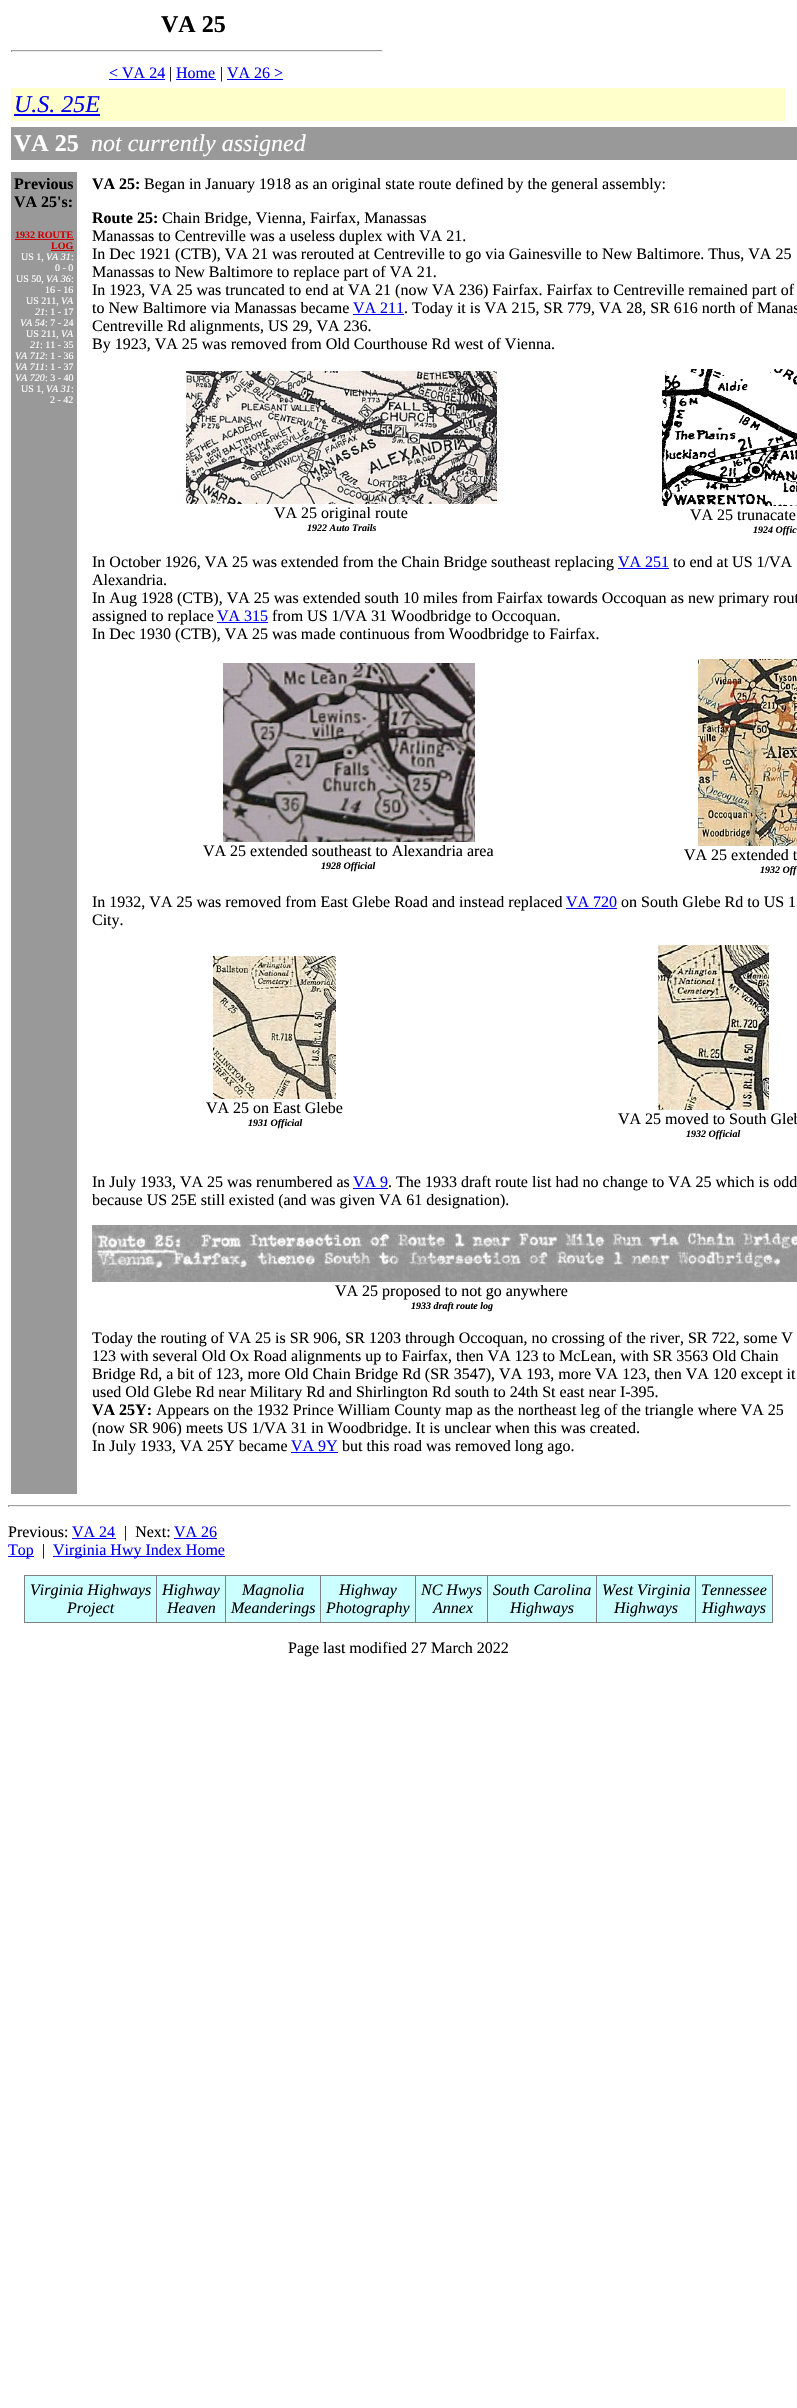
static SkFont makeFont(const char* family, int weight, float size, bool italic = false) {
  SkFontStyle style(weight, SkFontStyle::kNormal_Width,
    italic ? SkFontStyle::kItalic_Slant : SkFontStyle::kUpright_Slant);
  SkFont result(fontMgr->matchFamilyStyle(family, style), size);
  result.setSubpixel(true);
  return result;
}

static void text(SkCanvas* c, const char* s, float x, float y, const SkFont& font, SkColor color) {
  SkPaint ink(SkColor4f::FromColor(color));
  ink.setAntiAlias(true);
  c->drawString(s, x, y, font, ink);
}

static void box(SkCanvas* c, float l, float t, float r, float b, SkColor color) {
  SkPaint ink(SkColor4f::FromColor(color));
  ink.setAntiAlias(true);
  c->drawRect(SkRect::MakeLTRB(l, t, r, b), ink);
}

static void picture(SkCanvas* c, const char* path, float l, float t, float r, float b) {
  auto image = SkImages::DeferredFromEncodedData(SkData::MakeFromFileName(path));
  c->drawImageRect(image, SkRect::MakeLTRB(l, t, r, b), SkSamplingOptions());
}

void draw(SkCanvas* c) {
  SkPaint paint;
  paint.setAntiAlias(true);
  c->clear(0xffffffff);
  SkFont face1 = makeFont("Liberation Serif", 700, 24);
  text(c, "VA 25", 161, 32, face1, 0xff000000);
  box(c, 11, 50, 383, 51, 0xff9f9f9f);
  box(c, 382, 50, 383, 52, 0xffeeeeee);
  box(c, 11, 51, 383, 52, 0xffeeeeee);
  box(c, 11, 50, 12, 52, 0xff9f9f9f);
  SkFont face2 = makeFont("Liberation Serif", 400, 16);
  text(c, "< VA 24", 109, 78, face2, 0xff0000ee);
  box(c, 109, 79, 165, 80, 0xff0000ee);
  text(c, "|", 169, 78, face2, 0xff000000);
  text(c, "Home", 176, 78, face2, 0xff0000ee);
  box(c, 176, 79, 216, 80, 0xff0000ee);
  text(c, "|", 220, 78, face2, 0xff000000);
  text(c, "VA 26 >", 227, 78, face2, 0xff0000ee);
  box(c, 227, 79, 283, 80, 0xff0000ee);
  box(c, 11, 88, 786, 121, 0xffffffcc);
  SkFont face3 = makeFont("Liberation Serif", 400, 24, true);
  text(c, "U.S. 25E", 14, 112, face3, 0xff0000ee);
  box(c, 14, 114, 100, 116, 0xff0000ee);
  box(c, 11, 127, 797, 160, 0xff999999);
  text(c, "VA 25", 14, 151, face1, 0xffffffff);
  text(c, "not currently assigned", 91, 151, face3, 0xffffffff);
  box(c, 11, 172, 77, 1494, 0xff999999);
  SkFont face4 = makeFont("Liberation Serif", 700, 16);
  text(c, "Previous", 14, 189, face4, 0xff000000);
  text(c, "VA 25's:", 14, 207, face4, 0xff000000);
  SkFont face5 = makeFont("Liberation Serif", 700, 10);
  text(c, "1932 ROUTE", 15, 238, face5, 0xffcc0000);
  box(c, 15, 239, 74, 240, 0xffcc0000);
  text(c, "LOG", 51, 249, face5, 0xffcc0000);
  box(c, 51, 250, 74, 251, 0xffcc0000);
  SkFont face6 = makeFont("Liberation Serif", 400, 10);
  text(c, "US 1,", 21, 260, face6, 0xffffffff);
  SkFont face7 = makeFont("Liberation Serif", 400, 10, true);
  text(c, "VA 31", 46, 260, face7, 0xffffffff);
  text(c, ":", 71, 260, face6, 0xffffffff);
  text(c, "0 - 0", 55, 271, face6, 0xffffffff);
  text(c, "US 50,", 16, 282, face6, 0xffffffff);
  text(c, "VA 36", 46, 282, face7, 0xffffffff);
  text(c, ":", 71, 282, face6, 0xffffffff);
  text(c, "16 - 16", 45, 293, face6, 0xffffffff);
  text(c, "US 211,", 26, 304, face6, 0xffffffff);
  text(c, "VA", 61, 304, face7, 0xffffffff);
  text(c, "21", 35, 315, face7, 0xffffffff);
  text(c, ": 1 - 17", 45, 315, face6, 0xffffffff);
  text(c, "VA 54", 20, 326, face7, 0xffffffff);
  text(c, ": 7 - 24", 45, 326, face6, 0xffffffff);
  text(c, "US 211,", 26, 337, face6, 0xffffffff);
  text(c, "VA", 61, 337, face7, 0xffffffff);
  text(c, "21", 30, 348, face7, 0xffffffff);
  text(c, ": 11 - 35", 40, 348, face6, 0xffffffff);
  text(c, "VA 712", 15, 359, face7, 0xffffffff);
  text(c, ": 1 - 36", 45, 359, face6, 0xffffffff);
  text(c, "VA 711", 15, 370, face7, 0xffffffff);
  text(c, ": 1 - 37", 45, 370, face6, 0xffffffff);
  text(c, "VA 720", 15, 381, face7, 0xffffffff);
  text(c, ": 3 - 40", 45, 381, face6, 0xffffffff);
  text(c, "US 1,", 21, 392, face6, 0xffffffff);
  text(c, "VA 31", 46, 392, face7, 0xffffffff);
  text(c, ":", 71, 392, face6, 0xffffffff);
  text(c, "2 - 42", 50, 403, face6, 0xffffffff);
  text(c, "VA 25:", 92, 189, face4, 0xff000000);
  text(c, "Began in January 1918 as an original state route defined by the general assembly:", 144, 189, face2, 0xff000000);
  text(c, "Route 25:", 92, 223, face4, 0xff000000);
  text(c, "Chain Bridge, Vienna, Fairfax, Manassas", 162, 223, face2, 0xff000000);
  text(c, "Manassas to Centreville was a useless duplex with VA 21.", 92, 241, face2, 0xff000000);
  text(c, "In Dec 1921 (CTB), VA 21 was rerouted at Centreville to go via Gainesville to New Baltimore. Thus, VA 25", 92, 259, face2, 0xff000000);
  text(c, "Manassas to New Baltimore to replace part of VA 21.", 92, 277, face2, 0xff000000);
  text(c, "In 1923, VA 25 was truncated to end at VA 21 (now VA 236) Fairfax. Fairfax to Centreville remained part of", 92, 295, face2, 0xff000000);
  text(c, "to New Baltimore via Manassas became", 92, 313, face2, 0xff000000);
  text(c, "VA 211", 353, 313, face2, 0xff0000ee);
  box(c, 353, 314, 404, 315, 0xff0000ee);
  text(c, ". Today it is VA 215, SR 779, VA 28, SR 616 north of Manas", 404, 313, face2, 0xff000000);
  text(c, "Centreville Rd alignments, US 29, VA 236.", 92, 331, face2, 0xff000000);
  text(c, "By 1923, VA 25 was removed from Old Courthouse Rd west of Vienna.", 92, 349, face2, 0xff000000);
  picture(c, "img_01.png", 186, 371, 497, 504);
  text(c, "VA 25 original route", 274, 518, face2, 0xff000000);
  SkFont face8 = makeFont("Liberation Serif", 700, 10, true);
  text(c, "1922 Auto Trails", 307, 531, face8, 0xff000000);
  picture(c, "img_02.png", 662, 369, 797, 506);
  text(c, "VA 25 trunacate", 690, 520, face2, 0xff000000);
  text(c, "1924 Offic", 753, 533, face8, 0xff000000);
  text(c, "In October 1926, VA 25 was extended from the Chain Bridge southeast replacing", 92, 567, face2, 0xff000000);
  text(c, "VA 251", 618, 567, face2, 0xff0000ee);
  box(c, 618, 568, 669, 569, 0xff0000ee);
  text(c, "to end at US 1/VA", 673, 567, face2, 0xff000000);
  text(c, "Alexandria.", 92, 585, face2, 0xff000000);
  text(c, "In Aug 1928 (CTB), VA 25 was extended south 10 miles from Fairfax towards Occoquan as new primary rout", 92, 603, face2, 0xff000000);
  text(c, "assigned to replace", 92, 621, face2, 0xff000000);
  text(c, "VA 315", 217, 621, face2, 0xff0000ee);
  box(c, 217, 622, 268, 623, 0xff0000ee);
  text(c, "from US 1/VA 31 Woodbridge to Occoquan.", 272, 621, face2, 0xff000000);
  text(c, "In Dec 1930 (CTB), VA 25 was made continuous from Woodbridge to Fairfax.", 92, 639, face2, 0xff000000);
  picture(c, "img_03.png", 223, 663, 475, 842);
  text(c, "VA 25 extended southeast to Alexandria area", 203, 856, face2, 0xff000000);
  text(c, "1928 Official", 321, 869, face8, 0xff000000);
  picture(c, "img_04.png", 698, 659, 797, 846);
  text(c, "VA 25 extended t", 684, 860, face2, 0xff000000);
  text(c, "1932 Off", 760, 873, face8, 0xff000000);
  text(c, "In 1932, VA 25 was removed from East Glebe Road and instead replaced", 92, 907, face2, 0xff000000);
  text(c, "VA 720", 566, 907, face2, 0xff0000ee);
  box(c, 566, 908, 617, 909, 0xff0000ee);
  text(c, "on South Glebe Rd to US 1", 621, 907, face2, 0xff000000);
  text(c, "City.", 92, 925, face2, 0xff000000);
  picture(c, "img_05.png", 213, 956, 336, 1099);
  text(c, "VA 25 on East Glebe", 206, 1113, face2, 0xff000000);
  text(c, "1931 Official", 248, 1126, face8, 0xff000000);
  picture(c, "img_06.png", 658, 945, 769, 1110);
  text(c, "VA 25 moved to South Gleb", 618, 1124, face2, 0xff000000);
  text(c, "1932 Official", 686, 1137, face8, 0xff000000);
  text(c, "In July 1933, VA 25 was renumbered as", 92, 1187, face2, 0xff000000);
  text(c, "VA 9", 353, 1187, face2, 0xff0000ee);
  box(c, 353, 1188, 388, 1189, 0xff0000ee);
  text(c, ". The 1933 draft route list had no change to VA 25 which is odd", 388, 1187, face2, 0xff000000);
  text(c, "because US 25E still existed (and was given VA 61 designation).", 92, 1205, face2, 0xff000000);
  picture(c, "img_07.png", 92, 1225, 797, 1282);
  text(c, "VA 25 proposed to not go anywhere", 335, 1296, face2, 0xff000000);
  text(c, "1933 draft route log", 411, 1309, face8, 0xff000000);
  text(c, "Today the routing of VA 25 is SR 906, SR 1203 through Occoquan, no crossing of the river, SR 722, some V", 92, 1343, face2, 0xff000000);
  text(c, "123 with several Old Ox Road alignments up to Fairfax, then VA 123 to McLean, with SR 3563 Old Chain", 92, 1361, face2, 0xff000000);
  text(c, "Bridge Rd, a bit of 123, more Old Chain Bridge Rd (SR 3547), VA 193, more VA 123, then VA 120 except it", 92, 1379, face2, 0xff000000);
  text(c, "used Old Glebe Rd near Military Rd and Shirlington Rd south to 24th St east near I-395.", 92, 1397, face2, 0xff000000);
  text(c, "VA 25Y:", 92, 1415, face4, 0xff000000);
  text(c, "Appears on the 1932 Prince William County map as the northeast leg of the triangle where VA 25", 156, 1415, face2, 0xff000000);
  text(c, "(now SR 906) meets US 1/VA 31 in Woodbridge. It is unclear when this was created.", 92, 1433, face2, 0xff000000);
  text(c, "In July 1933, VA 25Y became", 92, 1451, face2, 0xff000000);
  text(c, "VA 9Y", 291, 1451, face2, 0xff0000ee);
  box(c, 291, 1452, 338, 1453, 0xff0000ee);
  text(c, "but this road was removed long ago.", 342, 1451, face2, 0xff000000);
  box(c, 8, 1505, 791, 1506, 0xff9f9f9f);
  box(c, 790, 1505, 791, 1507, 0xffeeeeee);
  box(c, 8, 1506, 791, 1507, 0xffeeeeee);
  box(c, 8, 1505, 9, 1507, 0xff9f9f9f);
  text(c, "Previous:", 8, 1537, face2, 0xff000000);
  text(c, "VA 24", 72, 1537, face2, 0xff0000ee);
  box(c, 72, 1538, 116, 1539, 0xff0000ee);
  text(c, "|  Next:", 124, 1537, face2, 0xff000000);
  text(c, "VA 26", 174, 1537, face2, 0xff0000ee);
  box(c, 174, 1538, 217, 1539, 0xff0000ee);
  box(c, 8, 1556, 34, 1557, 0xff0000ee);
  text(c, "Top", 8, 1555, face2, 0xff0000ee);
  text(c, "|", 42, 1555, face2, 0xff000000);
  box(c, 53, 1556, 225, 1557, 0xff0000ee);
  text(c, "Virginia Hwy Index Home", 53, 1555, face2, 0xff0000ee);
  box(c, 24, 1575, 773, 1576, 0xff808080);
  box(c, 772, 1575, 773, 1623, 0xff808080);
  box(c, 24, 1622, 773, 1623, 0xff808080);
  box(c, 24, 1575, 25, 1623, 0xff808080);
  box(c, 25, 1576, 156, 1622, 0xffccffff);
  SkFont face9 = makeFont("Liberation Serif", 400, 16, true);
  text(c, "Virginia Highways", 30, 1595, face9, 0xff000000);
  text(c, "Project", 67, 1613, face9, 0xff000000);
  box(c, 157, 1576, 225, 1622, 0xffccffff);
  box(c, 156, 1575, 157, 1623, 0xff808080);
  text(c, "Highway", 162, 1595, face9, 0xff000000);
  text(c, "Heaven", 167, 1613, face9, 0xff000000);
  box(c, 226, 1576, 320, 1622, 0xffccffff);
  box(c, 225, 1575, 226, 1623, 0xff808080);
  text(c, "Magnolia", 242, 1595, face9, 0xff000000);
  text(c, "Meanderings", 231, 1613, face9, 0xff000000);
  box(c, 321, 1576, 415, 1622, 0xffccffff);
  box(c, 320, 1575, 321, 1623, 0xff808080);
  text(c, "Highway", 339, 1595, face9, 0xff000000);
  text(c, "Photography", 326, 1613, face9, 0xff000000);
  box(c, 416, 1576, 487, 1622, 0xffccffff);
  box(c, 415, 1575, 416, 1623, 0xff808080);
  text(c, "NC Hwys", 421, 1595, face9, 0xff000000);
  text(c, "Annex", 433, 1613, face9, 0xff000000);
  box(c, 488, 1576, 596, 1622, 0xffccffff);
  box(c, 487, 1575, 488, 1623, 0xff808080);
  text(c, "South Carolina", 493, 1595, face9, 0xff000000);
  text(c, "Highways", 510, 1613, face9, 0xff000000);
  box(c, 597, 1576, 695, 1622, 0xffccffff);
  box(c, 596, 1575, 597, 1623, 0xff808080);
  text(c, "West Virginia", 602, 1595, face9, 0xff000000);
  text(c, "Highways", 614, 1613, face9, 0xff000000);
  box(c, 696, 1576, 772, 1622, 0xffccffff);
  box(c, 695, 1575, 696, 1623, 0xff808080);
  text(c, "Tennessee", 701, 1595, face9, 0xff000000);
  text(c, "Highways", 702, 1613, face9, 0xff000000);
  text(c, "Page last modified 27 March 2022", 288, 1653, face2, 0xff000000);
}
